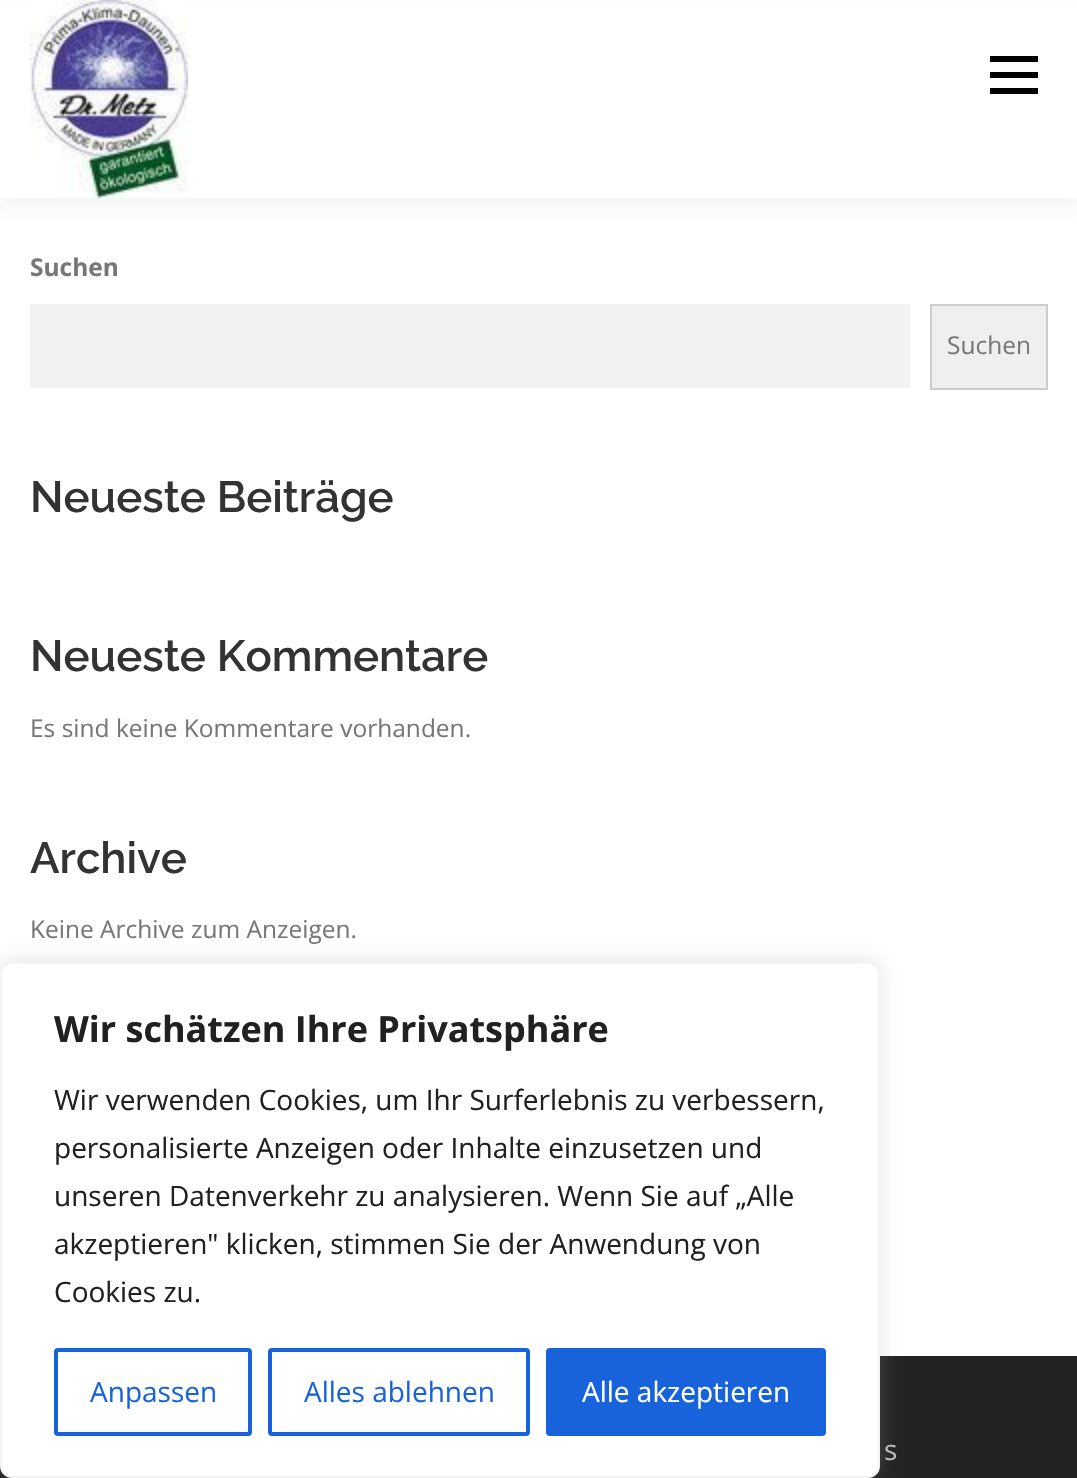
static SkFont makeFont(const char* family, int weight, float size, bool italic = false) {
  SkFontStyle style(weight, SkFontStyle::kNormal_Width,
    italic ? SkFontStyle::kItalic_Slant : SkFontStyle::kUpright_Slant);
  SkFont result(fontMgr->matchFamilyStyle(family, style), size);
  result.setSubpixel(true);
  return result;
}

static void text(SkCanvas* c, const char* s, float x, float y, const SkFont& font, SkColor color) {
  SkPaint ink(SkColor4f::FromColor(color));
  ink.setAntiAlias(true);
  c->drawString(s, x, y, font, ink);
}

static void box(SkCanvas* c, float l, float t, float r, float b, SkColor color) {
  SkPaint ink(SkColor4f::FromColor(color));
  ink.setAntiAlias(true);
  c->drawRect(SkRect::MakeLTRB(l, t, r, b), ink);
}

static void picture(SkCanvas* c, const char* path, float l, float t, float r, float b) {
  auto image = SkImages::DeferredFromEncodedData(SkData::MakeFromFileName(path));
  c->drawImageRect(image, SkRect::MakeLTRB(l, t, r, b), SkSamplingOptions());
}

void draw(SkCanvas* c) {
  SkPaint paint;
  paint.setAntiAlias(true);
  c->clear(0xffffffff);
  paint.setColor(0x0f323232);
  paint.setMaskFilter(SkMaskFilter::MakeBlur(kNormal_SkBlurStyle, 10));
  c->drawRect(SkRect::MakeLTRB(0, 10, 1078, 208), paint);
  paint.setMaskFilter(nullptr);
  box(c, 0, 2, 1077, 198, 0xffffffff);
  picture(c, "img_01.png", 30, 0, 188, 198);
  box(c, 990, 72, 1038, 78, 0xff000000);
  box(c, 990, 56, 1038, 62, 0xff000000);
  box(c, 990, 88, 1038, 94, 0xff000000);
  SkFont face1 = makeFont("Open Sans", 700, 24.5f);
  text(c, "Suchen", 30, 276, face1, 0xff777777);
  box(c, 30, 304, 910, 388, 0xfff2f2f2);
  paint.setColor(0xffefefef);
  c->drawRect(SkRect::MakeLTRB(931, 305, 1047, 389), paint);
  paint.setStyle(SkPaint::kStroke_Style);
  paint.setStrokeWidth(2);
  paint.setColor(0xffcccccc);
  c->drawRect(SkRect::MakeLTRB(931, 305, 1047, 389), paint);
  SkFont face2 = makeFont("Open Sans", 400, 24.5f);
  text(c, "Suchen", 947, 354, face2, 0xff777777);
  SkFont face3 = makeFont("Raleway", 600, 43.75f);
  text(c, "Neueste Beiträge", 30, 512, face3, 0xff333333);
  text(c, "Neueste Kommentare", 30, 671, face3, 0xff333333);
  text(c, "Es sind keine Kommentare vorhanden.", 30, 737, face2, 0xff777777);
  text(c, "Archive", 30, 873, face3, 0xff333333);
  text(c, "Keine Archive zum Anzeigen.", 30, 938, face2, 0xff777777);
  box(c, 0, 1356, 1077, 1478, 0xff222222);
  SkFont face4 = makeFont("Open Sans", 400, 28);
  text(c, "s", 884, 1460, face4, 0xffbbbbbb);
  paint.setStyle(SkPaint::kFill_Style);
  paint.setColor(0x4dacabab);
  paint.setMaskFilter(SkMaskFilter::MakeBlur(kNormal_SkBlurStyle, 10));
  c->drawRoundRect(SkRect::MakeLTRB(0, 960, 880, 1476), 12, 12, paint);
  paint.setMaskFilter(nullptr);
  paint.setColor(0xffffffff);
  c->drawRoundRect(SkRect::MakeLTRB(1, 963, 879, 1477), 11, 11, paint);
  paint.setStyle(SkPaint::kStroke_Style);
  paint.setColor(0xfff4f4f4);
  c->drawRoundRect(SkRect::MakeLTRB(1, 963, 879, 1477), 11, 11, paint);
  SkFont face5 = makeFont("Open Sans", 700, 36);
  text(c, "Wir schätzen Ihre Privatsphäre", 54, 1042, face5, 0xff212121);
  text(c, "Wir verwenden Cookies, um Ihr Surferlebnis zu verbessern,", 54, 1110, face4, 0xff212121);
  text(c, "personalisierte Anzeigen oder Inhalte einzusetzen und", 54, 1158, face4, 0xff212121);
  text(c, "unseren Datenverkehr zu analysieren. Wenn Sie auf „Alle", 54, 1206, face4, 0xff212121);
  text(c, "akzeptieren\" klicken, stimmen Sie der Anwendung von", 54, 1254, face4, 0xff212121);
  text(c, "Cookies zu.", 54, 1302, face4, 0xff212121);
  paint.setStrokeWidth(4);
  paint.setColor(0xff1863dc);
  c->drawRoundRect(SkRect::MakeLTRB(56, 1350, 250, 1434), 2, 2, paint);
  text(c, "Anpassen", 90, 1402, face4, 0xff1863dc);
  c->drawRoundRect(SkRect::MakeLTRB(270, 1350, 528, 1434), 2, 2, paint);
  text(c, "Alles ablehnen", 304, 1402, face4, 0xff1863dc);
  paint.setStyle(SkPaint::kFill_Style);
  c->drawRoundRect(SkRect::MakeLTRB(548, 1350, 824, 1434), 2, 2, paint);
  paint.setStyle(SkPaint::kStroke_Style);
  c->drawRoundRect(SkRect::MakeLTRB(548, 1350, 824, 1434), 2, 2, paint);
  text(c, "Alle akzeptieren", 582, 1402, face4, 0xffffffff);
}
